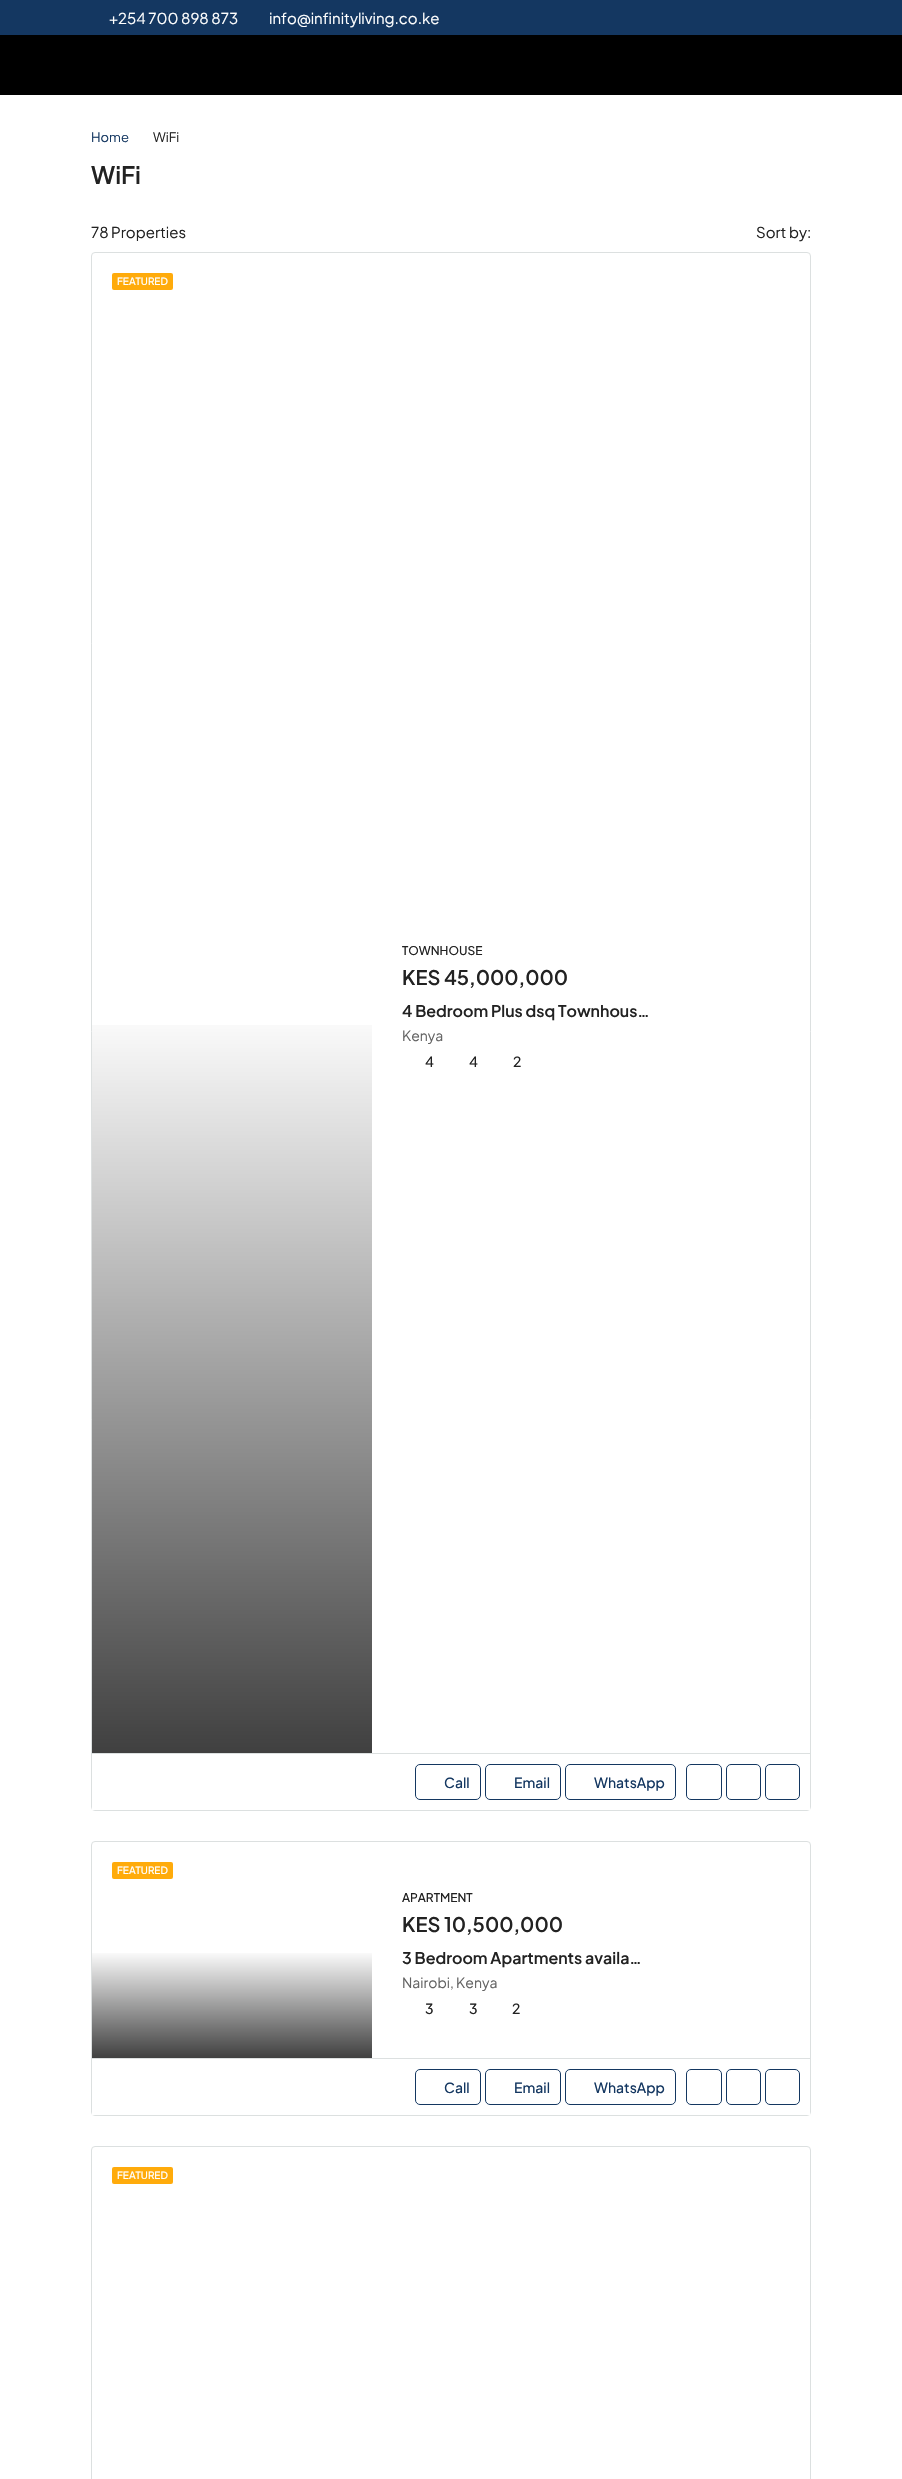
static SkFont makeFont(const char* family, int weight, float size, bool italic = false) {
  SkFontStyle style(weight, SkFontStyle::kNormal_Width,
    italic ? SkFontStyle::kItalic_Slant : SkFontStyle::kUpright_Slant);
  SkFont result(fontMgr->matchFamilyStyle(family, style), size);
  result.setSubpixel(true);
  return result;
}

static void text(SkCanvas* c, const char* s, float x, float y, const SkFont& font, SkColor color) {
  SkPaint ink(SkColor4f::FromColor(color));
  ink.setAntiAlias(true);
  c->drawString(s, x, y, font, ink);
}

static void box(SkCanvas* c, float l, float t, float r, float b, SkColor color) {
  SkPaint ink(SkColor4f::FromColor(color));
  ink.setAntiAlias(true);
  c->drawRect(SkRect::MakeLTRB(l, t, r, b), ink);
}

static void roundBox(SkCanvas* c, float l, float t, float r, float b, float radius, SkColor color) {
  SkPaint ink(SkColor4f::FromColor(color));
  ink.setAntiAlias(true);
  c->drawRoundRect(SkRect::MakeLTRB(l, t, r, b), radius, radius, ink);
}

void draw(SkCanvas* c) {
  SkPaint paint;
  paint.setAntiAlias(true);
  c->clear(0xffffffff);
  box(c, 0, 0, 902, 35, 0xff143761);
  SkFont face1 = makeFont("Plus Jakarta Sans", 400, 15);
  text(c, "+254 700 898 873", 109, 24, face1, 0xffffffff);
  text(c, "info@infinityliving.co.ke", 269, 24, face1, 0xffffffff);
  box(c, 0, 35, 902, 95, 0xff000000);
  SkFont face2 = makeFont("Plus Jakarta Sans", 400, 13);
  text(c, "Home", 91, 142, face2, 0xff143761);
  text(c, "WiFi", 153, 142, face2, 0xff222222);
  SkFont face3 = makeFont("Plus Jakarta Sans", 600, 24);
  text(c, "WiFi", 91, 184, face3, 0xff222222);
  text(c, "78 Properties", 91, 238, face1, 0xff222222);
  text(c, "Sort by:", 756, 238, face1, 0xff222222);
  paint.setStyle(SkPaint::kStroke_Style);
  paint.setStrokeWidth(1);
  paint.setColor(0xffdce0e0);
  c->drawRoundRect(SkRect::MakeLTRB(91.5f, 252.5f, 810.5f, 1810.5f), 3.5f, 3.5f, paint);
  roundBox(c, 112, 273, 173, 290, 2, 0xffffab0b);
  SkFont face4 = makeFont("Plus Jakarta Sans", 500, 10);
  text(c, "FEATURED", 117, 285, face4, 0xffffffff);
  paint.setStyle(SkPaint::kFill_Style);
  {
    const SkColor colors[] = {0x00000000, 0x00000000, 0xbf000000};
    const float stops[] = {0, 0.5f, 1};
    const SkPoint ends[] = {{232, 253}, {232, 1753}};
    paint.setShader(SkGradientShader::MakeLinear(ends, colors, stops, 3, SkTileMode::kClamp));
    paint.setAlpha(255);
  }
  c->drawRect(SkRect::MakeLTRB(92, 1025, 372, 1753), paint);
  SkFont face5 = makeFont("Plus Jakarta Sans", 500, 12);
  text(c, "TOWNHOUSE", 402, 955, face5, 0xff222222);
  SkFont face6 = makeFont("Plus Jakarta Sans", 600, 20);
  text(c, "KES 45,000,000", 402, 985, face6, 0xff222222);
  SkFont face7 = makeFont("Plus Jakarta Sans", 600, 16);
  text(c, "4 Bedroom Plus dsq Townhous…", 402, 1017, face7, 0xff222222);
  SkFont face8 = makeFont("Plus Jakarta Sans", 400, 14);
  text(c, "Kenya", 402, 1041, face8, 0xff636363);
  SkFont face9 = makeFont("Plus Jakarta Sans", 500, 14);
  text(c, "4", 425, 1067, face9, 0xff222222);
  text(c, "4", 469, 1067, face9, 0xff222222);
  text(c, "2", 513, 1067, face9, 0xff222222);
  box(c, 92, 1807, 810, 1810, 0xffffffff);
  box(c, 92, 1753, 810, 1754, 0xffdce0e0);
  paint.setStyle(SkPaint::kStroke_Style);
  paint.setShader(nullptr);
  paint.setColor(0xff143761);
  c->drawRoundRect(SkRect::MakeLTRB(415.5f, 1764.5f, 480.5f, 1799.5f), 4.5f, 4.5f, paint);
  text(c, "Call", 444, 1788, face9, 0xff143761);
  c->drawRoundRect(SkRect::MakeLTRB(485.5f, 1764.5f, 560.5f, 1799.5f), 4.5f, 4.5f, paint);
  text(c, "Email", 514, 1788, face9, 0xff143761);
  c->drawRoundRect(SkRect::MakeLTRB(565.5f, 1764.5f, 675.5f, 1799.5f), 4.5f, 4.5f, paint);
  text(c, "WhatsApp", 594, 1788, face9, 0xff143761);
  c->drawRoundRect(SkRect::MakeLTRB(686.5f, 1764.5f, 721.5f, 1799.5f), 4.5f, 4.5f, paint);
  c->drawRoundRect(SkRect::MakeLTRB(726.5f, 1764.5f, 760.5f, 1799.5f), 4.5f, 4.5f, paint);
  c->drawRoundRect(SkRect::MakeLTRB(765.5f, 1764.5f, 799.5f, 1799.5f), 4.5f, 4.5f, paint);
  paint.setColor(0xffdce0e0);
  c->drawRoundRect(SkRect::MakeLTRB(91.5f, 1841.5f, 810.5f, 2115.5f), 3.5f, 3.5f, paint);
  roundBox(c, 112, 1862, 173, 1879, 2, 0xffffab0b);
  text(c, "FEATURED", 117, 1874, face4, 0xffffffff);
  paint.setStyle(SkPaint::kFill_Style);
  {
    const SkColor colors[] = {0x00000000, 0x00000000, 0xbf000000};
    const float stops[] = {0, 0.5f, 1};
    const SkPoint ends[] = {{232, 1842}, {232, 2058}};
    paint.setShader(SkGradientShader::MakeLinear(ends, colors, stops, 3, SkTileMode::kClamp));
    paint.setAlpha(255);
  }
  c->drawRect(SkRect::MakeLTRB(92, 1953, 372, 2058), paint);
  text(c, "APARTMENT", 402, 1902, face5, 0xff222222);
  text(c, "KES 10,500,000", 402, 1932, face6, 0xff222222);
  text(c, "3 Bedroom Apartments availa…", 402, 1964, face7, 0xff222222);
  text(c, "Nairobi, Kenya", 402, 1988, face8, 0xff636363);
  text(c, "3", 425, 2014, face9, 0xff222222);
  text(c, "3", 469, 2014, face9, 0xff222222);
  text(c, "2", 512, 2014, face9, 0xff222222);
  box(c, 92, 2112, 810, 2115, 0xffffffff);
  box(c, 92, 2058, 810, 2059, 0xffdce0e0);
  paint.setStyle(SkPaint::kStroke_Style);
  paint.setShader(nullptr);
  paint.setColor(0xff143761);
  c->drawRoundRect(SkRect::MakeLTRB(415.5f, 2069.5f, 480.5f, 2104.5f), 4.5f, 4.5f, paint);
  text(c, "Call", 444, 2093, face9, 0xff143761);
  c->drawRoundRect(SkRect::MakeLTRB(485.5f, 2069.5f, 560.5f, 2104.5f), 4.5f, 4.5f, paint);
  text(c, "Email", 514, 2093, face9, 0xff143761);
  c->drawRoundRect(SkRect::MakeLTRB(565.5f, 2069.5f, 675.5f, 2104.5f), 4.5f, 4.5f, paint);
  text(c, "WhatsApp", 594, 2093, face9, 0xff143761);
  c->drawRoundRect(SkRect::MakeLTRB(686.5f, 2069.5f, 721.5f, 2104.5f), 4.5f, 4.5f, paint);
  c->drawRoundRect(SkRect::MakeLTRB(726.5f, 2069.5f, 760.5f, 2104.5f), 4.5f, 4.5f, paint);
  c->drawRoundRect(SkRect::MakeLTRB(765.5f, 2069.5f, 799.5f, 2104.5f), 4.5f, 4.5f, paint);
  paint.setColor(0xffdce0e0);
  c->drawRoundRect(SkRect::MakeLTRB(91.5f, 2146.5f, 810.5f, 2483.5f), 3.5f, 3.5f, paint);
  roundBox(c, 112, 2167, 173, 2184, 2, 0xffffab0b);
  text(c, "FEATURED", 117, 2179, face4, 0xffffffff);
}
